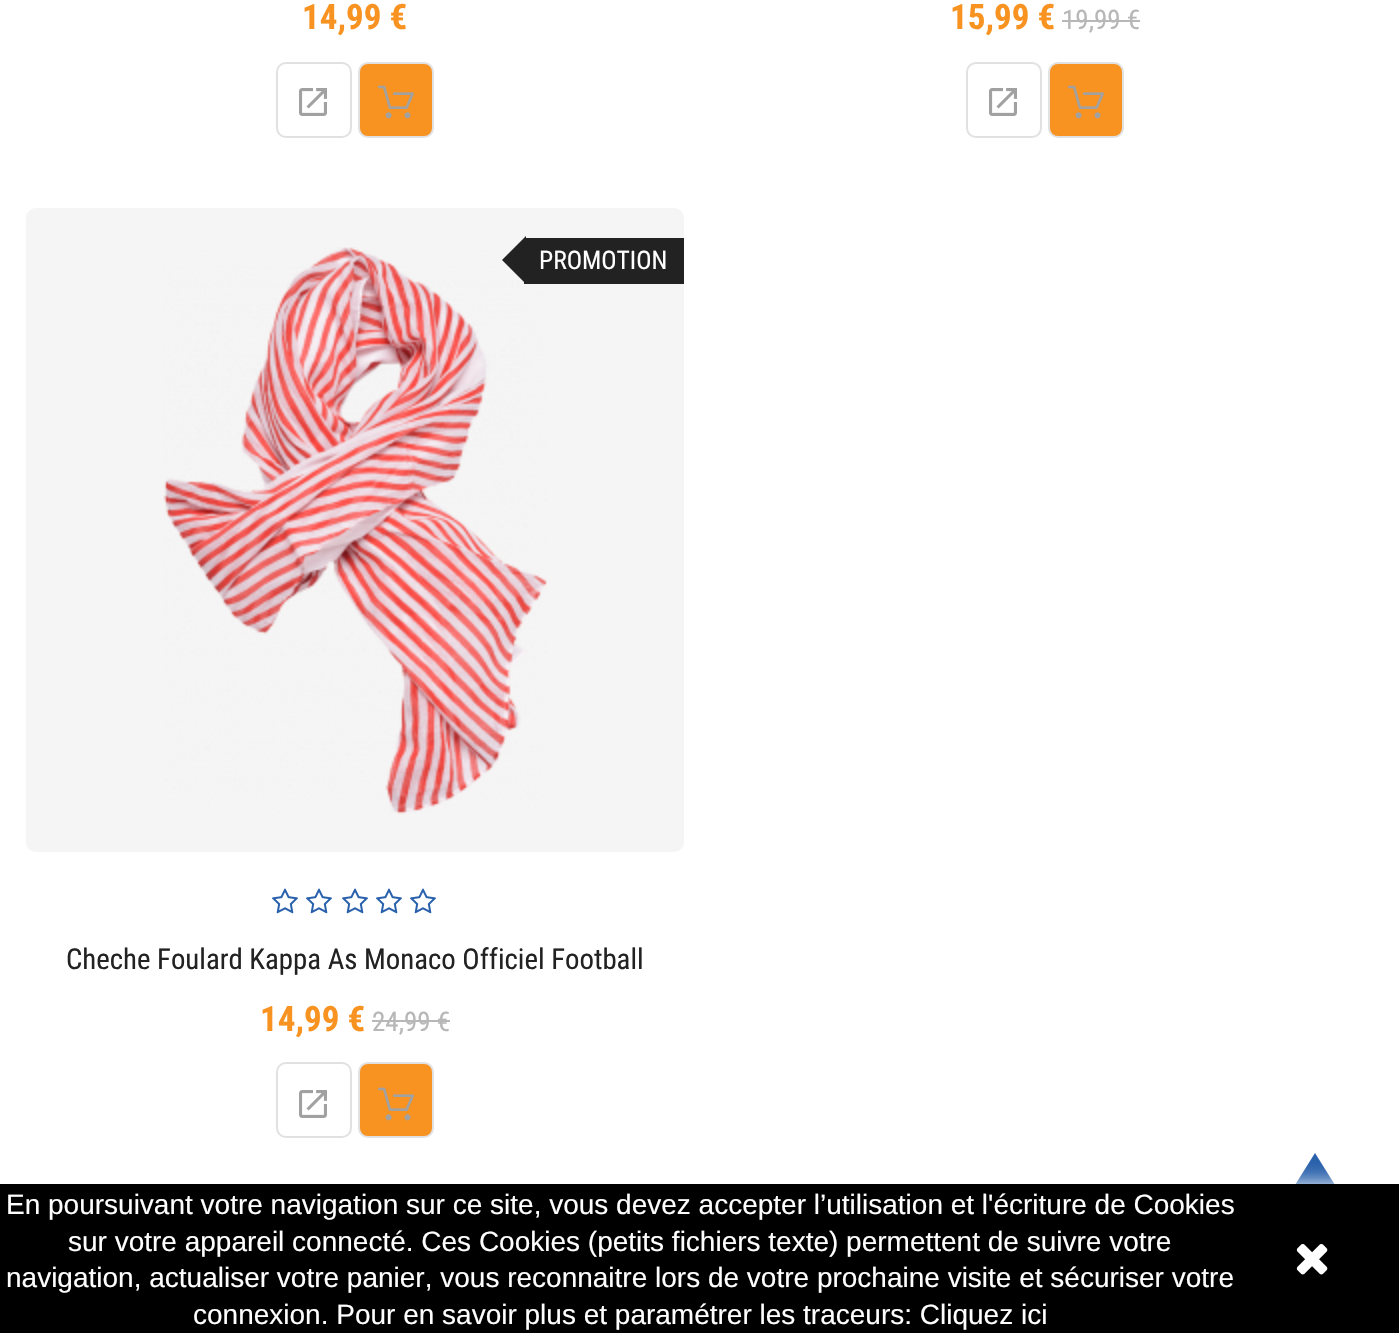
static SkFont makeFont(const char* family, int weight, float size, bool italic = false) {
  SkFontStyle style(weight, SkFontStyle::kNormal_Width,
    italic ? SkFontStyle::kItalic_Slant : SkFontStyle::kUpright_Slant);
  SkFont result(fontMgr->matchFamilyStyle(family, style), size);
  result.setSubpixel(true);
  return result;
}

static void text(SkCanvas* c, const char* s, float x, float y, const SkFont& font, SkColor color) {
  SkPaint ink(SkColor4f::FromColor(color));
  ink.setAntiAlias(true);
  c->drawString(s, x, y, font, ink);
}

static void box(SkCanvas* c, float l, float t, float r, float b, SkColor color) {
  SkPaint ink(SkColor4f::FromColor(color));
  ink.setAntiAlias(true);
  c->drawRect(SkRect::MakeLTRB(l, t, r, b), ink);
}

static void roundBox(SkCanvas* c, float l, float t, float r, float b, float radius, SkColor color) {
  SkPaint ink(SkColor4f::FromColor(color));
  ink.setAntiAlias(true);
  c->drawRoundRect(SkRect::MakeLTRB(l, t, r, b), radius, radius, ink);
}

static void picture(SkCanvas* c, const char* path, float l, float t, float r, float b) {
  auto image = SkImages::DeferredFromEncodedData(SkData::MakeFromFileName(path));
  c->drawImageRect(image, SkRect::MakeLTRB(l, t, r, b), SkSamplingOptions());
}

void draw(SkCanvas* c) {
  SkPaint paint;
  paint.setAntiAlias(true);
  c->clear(0xffffffff);
  SkFont face1 = makeFont("Roboto Condensed", 700, 35);
  text(c, "14,99 €", 302, 29, face1, 0xfff89321);
  paint.setStyle(SkPaint::kStroke_Style);
  paint.setStrokeWidth(2);
  paint.setColor(0xffe1e1e1);
  c->drawRoundRect(SkRect::MakeLTRB(277, 63, 351, 137), 9, 9, paint);
  picture(c, "img_01.png", 299, 88, 327, 116);
  paint.setStyle(SkPaint::kFill_Style);
  paint.setColor(0xfff89321);
  c->drawRoundRect(SkRect::MakeLTRB(359, 63, 433, 137), 9, 9, paint);
  paint.setStyle(SkPaint::kStroke_Style);
  paint.setColor(0xffe1e1e1);
  c->drawRoundRect(SkRect::MakeLTRB(359, 63, 433, 137), 9, 9, paint);
  picture(c, "img_02.png", 378, 85, 414, 119);
  text(c, "15,99 €", 950, 29, face1, 0xfff89321);
  SkFont face2 = makeFont("Roboto Condensed", 400, 27);
  text(c, "19,99 €", 1062, 29, face2, 0xffb7b7b7);
  box(c, 1062, 20, 1140, 22, 0xffb7b7b7);
  c->drawRoundRect(SkRect::MakeLTRB(967, 63, 1041, 137), 9, 9, paint);
  picture(c, "img_01.png", 989, 88, 1017, 116);
  paint.setStyle(SkPaint::kFill_Style);
  paint.setColor(0xfff89321);
  c->drawRoundRect(SkRect::MakeLTRB(1049, 63, 1123, 137), 9, 9, paint);
  paint.setStyle(SkPaint::kStroke_Style);
  paint.setColor(0xffe1e1e1);
  c->drawRoundRect(SkRect::MakeLTRB(1049, 63, 1123, 137), 9, 9, paint);
  picture(c, "img_02.png", 1068, 85, 1104, 119);
  roundBox(c, 26, 208, 684, 852, 10, 0xfff5f5f5);
  picture(c, "img_03.png", 163, 247, 547, 815);
  box(c, 524, 238, 684, 284, 0xff222222);
  paint.setStyle(SkPaint::kFill_Style);
  paint.setColor(0xff222222);
  c->drawPath(SkPathBuilder().moveTo(502, 260).lineTo(526, 236).lineTo(526, 284).close().detach(), paint);
  SkFont face3 = makeFont("Roboto Condensed", 400, 25.5f);
  text(c, "PROMOTION", 539, 269, face3, 0xffffffff);
  picture(c, "img_04.png", 272, 888, 298, 914);
  picture(c, "img_04.png", 306, 888, 332, 914);
  picture(c, "img_04.png", 342, 888, 368, 914);
  picture(c, "img_04.png", 376, 888, 402, 914);
  picture(c, "img_04.png", 410, 888, 436, 914);
  SkFont face4 = makeFont("Roboto Condensed", 400, 28.8f);
  text(c, "Cheche Foulard Kappa As Monaco Officiel Football", 66, 969, face4, 0xff222222);
  text(c, "14,99 €", 260, 1031, face1, 0xfff89321);
  text(c, "24,99 €", 372, 1031, face2, 0xffb7b7b7);
  box(c, 372, 1020, 450, 1022, 0xffb7b7b7);
  paint.setStyle(SkPaint::kStroke_Style);
  paint.setColor(0xffe1e1e1);
  c->drawRoundRect(SkRect::MakeLTRB(277, 1063, 351, 1137), 9, 9, paint);
  picture(c, "img_01.png", 299, 1090, 327, 1118);
  paint.setStyle(SkPaint::kFill_Style);
  paint.setColor(0xfff89321);
  c->drawRoundRect(SkRect::MakeLTRB(359, 1063, 433, 1137), 9, 9, paint);
  paint.setStyle(SkPaint::kStroke_Style);
  paint.setColor(0xffe1e1e1);
  c->drawRoundRect(SkRect::MakeLTRB(359, 1063, 433, 1137), 9, 9, paint);
  picture(c, "img_02.png", 378, 1087, 414, 1121);
  paint.setStyle(SkPaint::kFill_Style);
  paint.setColor(0xff2860ab);
  c->drawPath(SkPathBuilder().moveTo(1315, 1153).lineTo(1270, 1225).lineTo(1315, 1206).lineTo(1360, 1225).close().detach(), paint);
  paint.setColor(0xffffffff);
  paint.setMaskFilter(SkMaskFilter::MakeBlur(kNormal_SkBlurStyle, 10));
  c->drawRect(SkRect::MakeLTRB(0, 1184, 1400, 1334), paint);
  paint.setMaskFilter(nullptr);
  box(c, 0, 1184, 1399, 1333, 0xff000000);
  SkFont face5 = makeFont("Liberation Sans", 400, 28);
  text(c, "En poursuivant votre navigation sur ce site, vous devez accepter l’utilisation et l'écriture de Cookies", 6, 1214, face5, 0xffffffff);
  text(c, "sur votre appareil connecté. Ces Cookies (petits fichiers texte) permettent de suivre votre", 68, 1251, face5, 0xffffffff);
  text(c, "navigation, actualiser votre panier, vous reconnaitre lors de votre prochaine visite et sécuriser votre", 6, 1287, face5, 0xffffffff);
  text(c, "connexion. Pour en savoir plus et paramétrer les traceurs: Cliquez ici", 193, 1324, face5, 0xffffffff);
  picture(c, "img_05.png", 1296, 1244, 1328, 1275);
}
